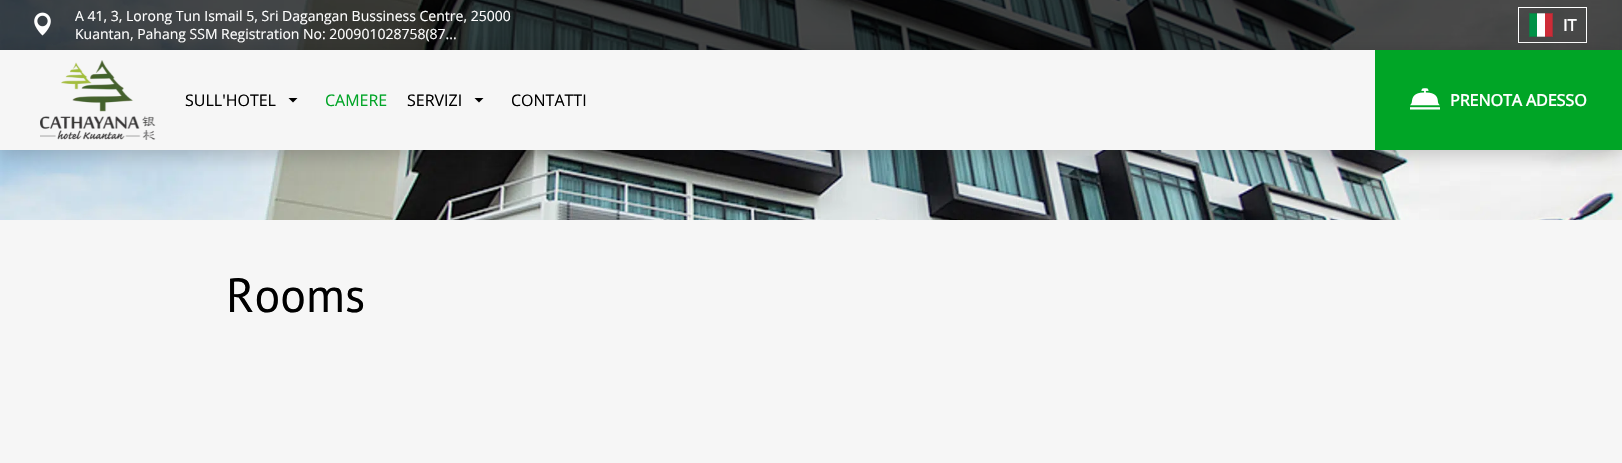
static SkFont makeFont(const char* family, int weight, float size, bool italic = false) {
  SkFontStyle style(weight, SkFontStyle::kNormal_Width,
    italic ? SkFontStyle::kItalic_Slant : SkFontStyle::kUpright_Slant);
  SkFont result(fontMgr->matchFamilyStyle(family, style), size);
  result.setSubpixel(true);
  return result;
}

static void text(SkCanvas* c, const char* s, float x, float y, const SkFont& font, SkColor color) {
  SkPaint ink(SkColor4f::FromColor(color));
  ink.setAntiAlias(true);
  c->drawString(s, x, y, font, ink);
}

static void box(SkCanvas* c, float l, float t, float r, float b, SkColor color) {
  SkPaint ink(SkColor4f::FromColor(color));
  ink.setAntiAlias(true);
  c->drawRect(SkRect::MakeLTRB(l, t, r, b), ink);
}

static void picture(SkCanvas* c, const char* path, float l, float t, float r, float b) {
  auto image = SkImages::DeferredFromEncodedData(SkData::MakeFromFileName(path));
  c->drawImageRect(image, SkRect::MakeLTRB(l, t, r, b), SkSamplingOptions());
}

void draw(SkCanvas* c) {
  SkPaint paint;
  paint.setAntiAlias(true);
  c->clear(0xfff6f6f6);
  picture(c, "img_01.png", 0, 0, 1622, 220);
  box(c, 0, 0, 1622, 50, 0xb3000000);
  picture(c, "img_02.png", 34, 12, 51, 36);
  SkFont face1 = makeFont("Open Sans", 400, 14);
  text(c, "A 41, 3, Lorong Tun Ismail 5, Sri Dagangan Bussiness Centre, 25000", 75, 21, face1, 0xffffffff);
  text(c, "Kuantan, Pahang SSM Registration No: 200901028758(87...", 75, 39, face1, 0xffffffff);
  paint.setStyle(SkPaint::kStroke_Style);
  paint.setStrokeWidth(1);
  paint.setColor(0xffffffff);
  c->drawRect(SkRect::MakeLTRB(1518.5f, 7.5f, 1586.5f, 42.5f), paint);
  picture(c, "img_03.png", 1529, 13, 1553, 37);
  paint.setColor(0x293d3d3d);
  c->drawRect(SkRect::MakeLTRB(1529.5f, 13.5f, 1552.5f, 36.5f), paint);
  SkFont face2 = makeFont("Open Sans", 700, 16);
  text(c, "IT", 1563, 31, face2, 0xffffffff);
  paint.setStyle(SkPaint::kFill_Style);
  paint.setColor(0x33000000);
  paint.setMaskFilter(SkMaskFilter::MakeBlur(kNormal_SkBlurStyle, 10));
  c->drawRect(SkRect::MakeLTRB(0, 55, 1622, 155), paint);
  paint.setMaskFilter(nullptr);
  box(c, 0, 50, 1375, 150, 0xfff6f6f6);
  picture(c, "img_04.png", 40, 60, 156, 140);
  SkFont face3 = makeFont("Open Sans", 400, 16);
  text(c, "SULL'HOTEL", 185, 106, face3, 0xff000000);
  paint.setColor(0xff000000);
  c->drawPath(SkPathBuilder().moveTo(293, 102.5f).lineTo(288.5f, 98).lineTo(297.5f, 98).close().detach(), paint);
  text(c, "CAMERE", 325, 106, face3, 0xff00a526);
  text(c, "SERVIZI", 407, 106, face3, 0xff000000);
  c->drawPath(SkPathBuilder().moveTo(479, 102.5f).lineTo(474.5f, 98).lineTo(483.5f, 98).close().detach(), paint);
  text(c, "CONTATTI", 511, 106, face3, 0xff000000);
  box(c, 1375, 50, 1622, 150, 0xff00a526);
  picture(c, "img_05.png", 1410, 88, 1440, 110);
  text(c, "PRENOTA ADESSO", 1450, 106, face2, 0xffffffff);
  SkFont face4 = makeFont("PT Sans", 400, 48);
  text(c, "Rooms", 226, 312, face4, 0xff000000);
}
